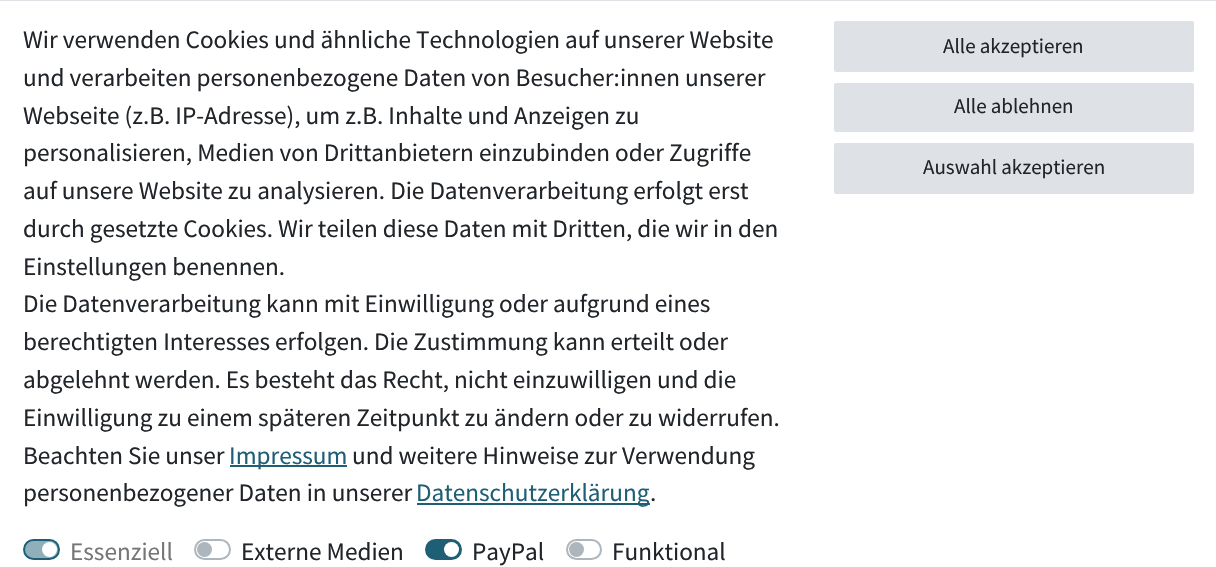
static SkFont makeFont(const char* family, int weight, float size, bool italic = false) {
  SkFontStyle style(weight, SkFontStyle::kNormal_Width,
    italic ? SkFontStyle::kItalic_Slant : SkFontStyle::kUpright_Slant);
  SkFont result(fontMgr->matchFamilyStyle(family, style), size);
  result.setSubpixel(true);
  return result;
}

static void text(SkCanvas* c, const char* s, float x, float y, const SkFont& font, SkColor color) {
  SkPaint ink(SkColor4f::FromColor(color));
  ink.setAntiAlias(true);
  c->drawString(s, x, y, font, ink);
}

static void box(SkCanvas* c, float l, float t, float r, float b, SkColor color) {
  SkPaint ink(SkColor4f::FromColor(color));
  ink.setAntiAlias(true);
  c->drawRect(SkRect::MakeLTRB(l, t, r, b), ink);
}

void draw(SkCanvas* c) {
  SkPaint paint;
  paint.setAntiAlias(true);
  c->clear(0xffffffff);
  box(c, 0, 0, 1216, 1, 0xffdee2e6);
  SkFont face1 = makeFont("Source Sans Pro", 400, 25.2f);
  text(c, "Wir verwenden Cookies und ähnliche Technologien auf unserer Website", 23, 48, face1, 0xff212529);
  text(c, "und verarbeiten personenbezogene Daten von Besucher:innen unserer", 23, 86, face1, 0xff212529);
  text(c, "Webseite (z.B. IP-Adresse), um z.B. Inhalte und Anzeigen zu", 23, 124, face1, 0xff212529);
  text(c, "personalisieren, Medien von Drittanbietern einzubinden oder Zugriffe", 23, 161, face1, 0xff212529);
  text(c, "auf unsere Website zu analysieren. Die Datenverarbeitung erfolgt erst", 23, 199, face1, 0xff212529);
  text(c, "durch gesetzte Cookies. Wir teilen diese Daten mit Dritten, die wir in den", 23, 237, face1, 0xff212529);
  text(c, "Einstellungen benennen.", 23, 275, face1, 0xff212529);
  text(c, "Die Datenverarbeitung kann mit Einwilligung oder aufgrund eines", 23, 312, face1, 0xff212529);
  text(c, "berechtigten Interesses erfolgen. Die Zustimmung kann erteilt oder", 23, 350, face1, 0xff212529);
  text(c, "abgelehnt werden. Es besteht das Recht, nicht einzuwilligen und die", 23, 388, face1, 0xff212529);
  text(c, "Einwilligung zu einem späteren Zeitpunkt zu ändern oder zu widerrufen.", 23, 426, face1, 0xff212529);
  text(c, "Beachten Sie unser", 23, 464, face1, 0xff212529);
  box(c, 230, 465, 347, 467, 0xff1e5f76);
  text(c, "Impressum", 229, 464, face1, 0xff1e5f76);
  text(c, "und weitere Hinweise zur Verwendung", 352, 464, face1, 0xff212529);
  text(c, "personenbezogener Daten in unserer", 23, 501, face1, 0xff212529);
  box(c, 417, 503, 650, 505, 0xff1e5f76);
  text(c, "Datenschutzerklärung", 416, 501, face1, 0xff1e5f76);
  text(c, ".", 650, 501, face1, 0xff212529);
  paint.setColor(0xff8fafbb);
  c->drawRoundRect(SkRect::MakeLTRB(24, 540, 59, 559), 9.5f, 9.5f, paint);
  paint.setStyle(SkPaint::kStroke_Style);
  paint.setStrokeWidth(2);
  paint.setColor(0xff1e5f76);
  c->drawRoundRect(SkRect::MakeLTRB(24, 540, 59, 559), 9.5f, 9.5f, paint);
  paint.setStyle(SkPaint::kFill_Style);
  paint.setColor(0xffffffff);
  c->drawCircle(49.5f, 549.5f, 7.5f, paint);
  text(c, "Essenziell", 70, 560, face1, 0xff767676);
  paint.setStyle(SkPaint::kStroke_Style);
  paint.setColor(0xffadb5bd);
  c->drawRoundRect(SkRect::MakeLTRB(195, 540, 230, 559), 9.5f, 9.5f, paint);
  paint.setStyle(SkPaint::kFill_Style);
  c->drawCircle(204.5f, 549.5f, 7.5f, paint);
  text(c, "Externe Medien", 241, 560, face1, 0xff212529);
  paint.setColor(0xff1e5f76);
  c->drawRoundRect(SkRect::MakeLTRB(426, 540, 461, 559), 9.5f, 9.5f, paint);
  paint.setStyle(SkPaint::kStroke_Style);
  c->drawRoundRect(SkRect::MakeLTRB(426, 540, 461, 559), 9.5f, 9.5f, paint);
  paint.setStyle(SkPaint::kFill_Style);
  paint.setColor(0xffffffff);
  c->drawCircle(451.5f, 549.5f, 7.5f, paint);
  text(c, "PayPal", 472, 560, face1, 0xff212529);
  paint.setStyle(SkPaint::kStroke_Style);
  paint.setColor(0xffadb5bd);
  c->drawRoundRect(SkRect::MakeLTRB(567, 540, 601, 559), 9.5f, 9.5f, paint);
  paint.setStyle(SkPaint::kFill_Style);
  c->drawCircle(576.5f, 549.5f, 7.5f, paint);
  text(c, "Funktional", 612, 560, face1, 0xff212529);
  paint.setColor(0xffdee2e6);
  c->drawRoundRect(SkRect::MakeLTRB(835, 22, 1193, 71), 1, 1, paint);
  paint.setStyle(SkPaint::kStroke_Style);
  c->drawRoundRect(SkRect::MakeLTRB(835, 22, 1193, 71), 1, 1, paint);
  SkFont face2 = makeFont("Source Sans Pro", 400, 21);
  text(c, "Alle akzeptieren", 943, 53, face2, 0xff212529);
  paint.setStyle(SkPaint::kFill_Style);
  c->drawRoundRect(SkRect::MakeLTRB(835, 84, 1193, 131), 1, 1, paint);
  paint.setStyle(SkPaint::kStroke_Style);
  c->drawRoundRect(SkRect::MakeLTRB(835, 84, 1193, 131), 1, 1, paint);
  text(c, "Alle ablehnen", 954, 113, face2, 0xff212529);
  paint.setStyle(SkPaint::kFill_Style);
  c->drawRoundRect(SkRect::MakeLTRB(835, 144, 1193, 193), 1, 1, paint);
  paint.setStyle(SkPaint::kStroke_Style);
  c->drawRoundRect(SkRect::MakeLTRB(835, 144, 1193, 193), 1, 1, paint);
  text(c, "Auswahl akzeptieren", 923, 174, face2, 0xff212529);
}
